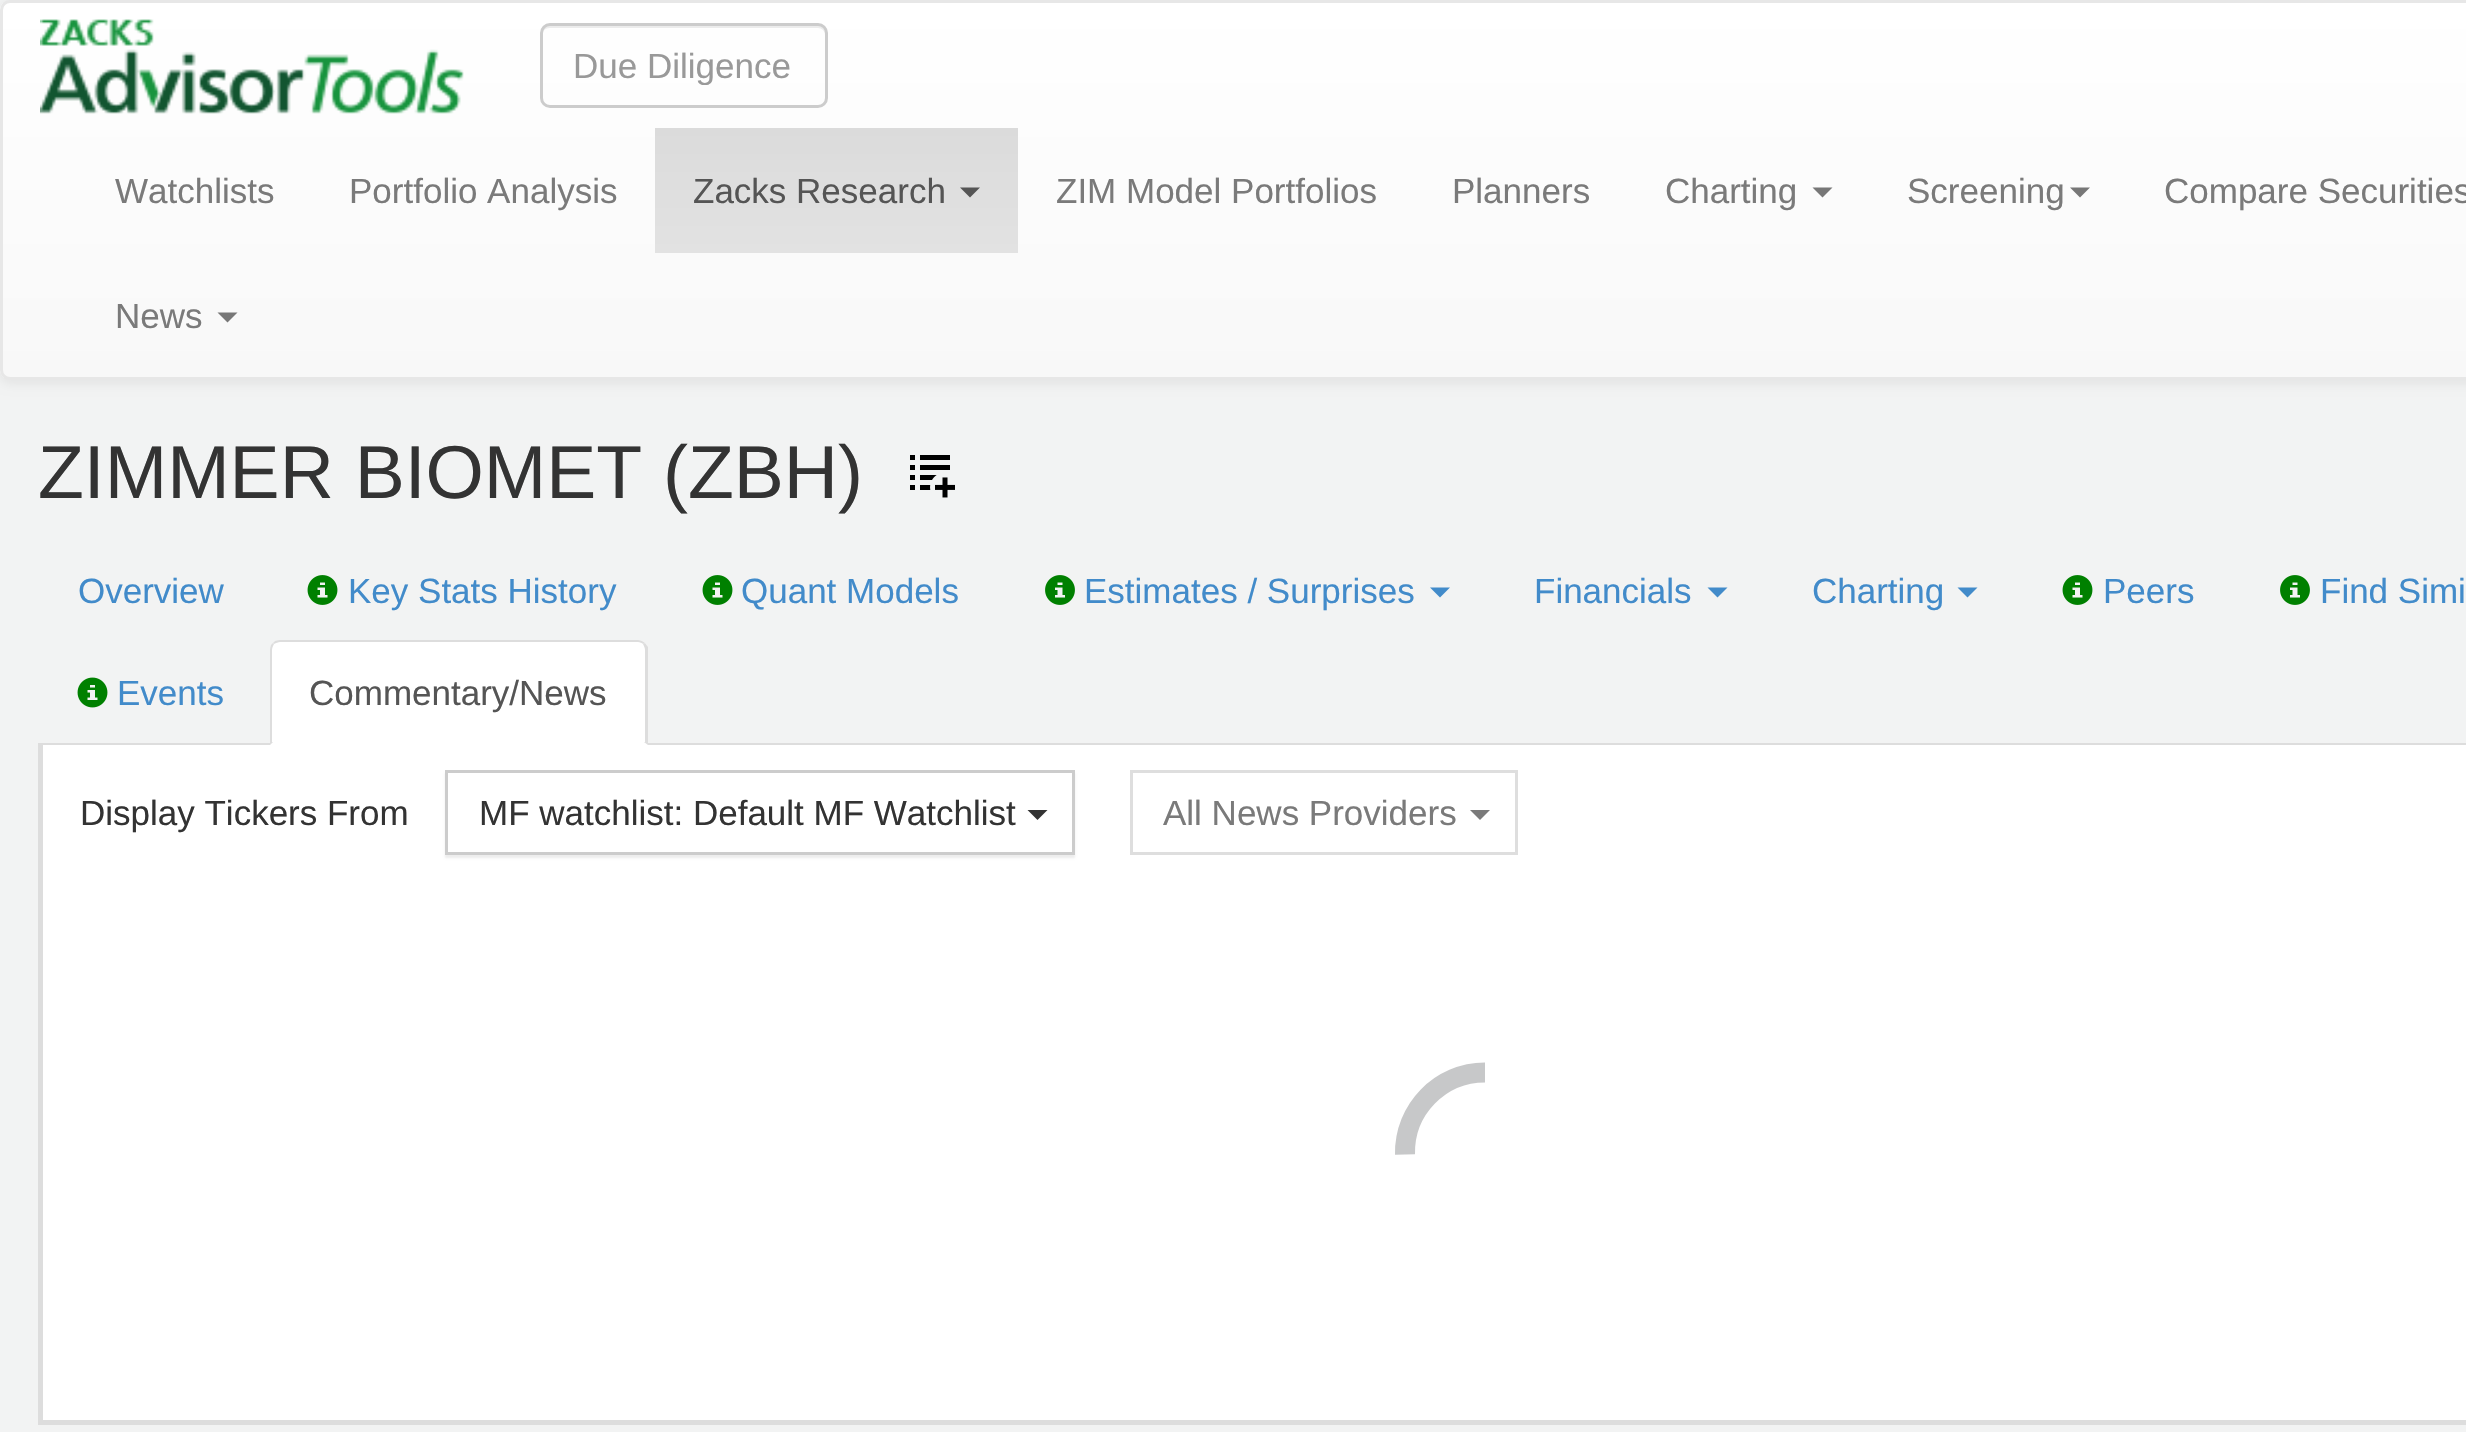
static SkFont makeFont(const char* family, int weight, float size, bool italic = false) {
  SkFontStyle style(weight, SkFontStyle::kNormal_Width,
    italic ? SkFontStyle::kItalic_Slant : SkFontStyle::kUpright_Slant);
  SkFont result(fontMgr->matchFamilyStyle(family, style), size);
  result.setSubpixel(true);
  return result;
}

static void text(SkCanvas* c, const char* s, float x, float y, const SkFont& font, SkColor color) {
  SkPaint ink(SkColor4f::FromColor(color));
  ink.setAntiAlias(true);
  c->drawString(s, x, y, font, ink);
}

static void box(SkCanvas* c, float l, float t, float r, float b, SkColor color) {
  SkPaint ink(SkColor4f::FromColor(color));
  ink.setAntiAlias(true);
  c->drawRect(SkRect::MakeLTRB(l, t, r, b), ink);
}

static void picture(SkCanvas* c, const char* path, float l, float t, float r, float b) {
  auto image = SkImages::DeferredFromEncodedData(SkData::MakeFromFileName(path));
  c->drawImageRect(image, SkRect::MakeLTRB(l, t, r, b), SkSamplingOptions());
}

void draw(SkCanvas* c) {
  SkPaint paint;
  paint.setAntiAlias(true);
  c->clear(0xfff2f3f3);
  paint.setColor(0x12000000);
  paint.setMaskFilter(SkMaskFilter::MakeBlur(kNormal_SkBlurStyle, 6));
  c->drawRoundRect(SkRect::MakeLTRB(0, 3, 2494, 383), 10, 10, paint);
  paint.setMaskFilter(nullptr);
  c->save();
  c->clipPath(SkPathBuilder().moveTo(10, 0).lineTo(2990, 0).cubicTo(2995.5f, 0, 3000, 4.5f, 3000, 10).lineTo(3000, 370).cubicTo(3000, 375.5f, 2995.5f, 380, 2990, 380).lineTo(10, 380).cubicTo(4.5f, 380, 0, 375.5f, 0, 370).lineTo(0, 10).cubicTo(0, 4.5f, 4.5f, 0, 10, 0).close().detach(), true);
  {
    const SkColor colors[] = {0xffffffff, 0xfff8f8f8};
    const float stops[] = {0, 1};
    const SkPoint ends[] = {{1500, 2.5f}, {1500, 378}};
    paint.setShader(SkGradientShader::MakeLinear(ends, colors, stops, 2, SkTileMode::kClamp));
    paint.setAlpha(255);
  }
  c->drawRect(SkRect::MakeLTRB(0, 3, 2466, 378), paint);
  c->restore();
  paint.setStyle(SkPaint::kStroke_Style);
  paint.setStrokeWidth(3);
  paint.setShader(nullptr);
  paint.setColor(0xffe7e7e7);
  c->drawRoundRect(SkRect::MakeLTRB(1.5f, 1.5f, 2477.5f, 378.5f), 8.5f, 8.5f, paint);
  picture(c, "img_01.png", 40, 19, 464, 114);
  paint.setStyle(SkPaint::kFill_Style);
  paint.setColor(0xffececec);
  c->drawPath(SkPathBuilder().moveTo(550, 28).lineTo(818, 28).cubicTo(822, 28, 825, 31, 825, 35).lineTo(825, 33).cubicTo(825, 29, 821, 25, 817, 25).lineTo(551, 25).cubicTo(547, 25, 544, 28, 543, 31).cubicTo(545, 29, 547, 28, 550, 28).close().detach(), paint);
  paint.setStyle(SkPaint::kStroke_Style);
  paint.setColor(0xffcccccc);
  c->drawRoundRect(SkRect::MakeLTRB(541.5f, 24.5f, 826.5f, 106.5f), 8.5f, 8.5f, paint);
  c->save();
  c->clipRect(SkRect::MakeLTRB(573, 45, 795, 85));
  SkFont face1 = makeFont("Liberation Sans", 400, 35);
  text(c, "Due Diligence", 573, 78, face1, 0xff999999);
  c->restore();
  text(c, "Watchlists", 115, 203, face1, 0xff7a7a7a);
  text(c, "Portfolio Analysis", 349, 203, face1, 0xff7a7a7a);
  paint.setStyle(SkPaint::kFill_Style);
  {
    const SkColor colors[] = {0xffdbdbdb, 0xffe2e2e2};
    const float stops[] = {0, 1};
    const SkPoint ends[] = {{836, 127}, {836, 253}};
    paint.setShader(SkGradientShader::MakeLinear(ends, colors, stops, 2, SkTileMode::kClamp));
    paint.setAlpha(255);
  }
  c->drawRect(SkRect::MakeLTRB(655, 128, 1018, 253), paint);
  text(c, "Zacks Research", 693, 203, face1, 0xff555555);
  paint.setShader(nullptr);
  paint.setColor(0xff555555);
  c->drawPath(SkPathBuilder().moveTo(960, 187.5f).lineTo(980, 187.5f).lineTo(970, 197.5f).close().detach(), paint);
  text(c, "ZIM Model Portfolios", 1056, 203, face1, 0xff7a7a7a);
  text(c, "Planners", 1452, 203, face1, 0xff7a7a7a);
  text(c, "Charting", 1665, 203, face1, 0xff7a7a7a);
  paint.setColor(0xff777777);
  c->drawPath(SkPathBuilder().moveTo(1812.5f, 187.5f).lineTo(1832.5f, 187.5f).lineTo(1822.5f, 197.5f).close().detach(), paint);
  text(c, "Screening", 1907, 203, face1, 0xff7a7a7a);
  c->drawPath(SkPathBuilder().moveTo(2070, 187.5f).lineTo(2090, 187.5f).lineTo(2080, 197.5f).close().detach(), paint);
  text(c, "Compare Securities", 2164, 203, face1, 0xff7a7a7a);
  text(c, "News", 115, 328, face1, 0xff7a7a7a);
  c->drawPath(SkPathBuilder().moveTo(217.5f, 312.5f).lineTo(237.5f, 312.5f).lineTo(227.5f, 322.5f).close().detach(), paint);
  SkFont face2 = makeFont("Liberation Sans", 400, 75);
  text(c, "ZIMMER BIOMET (ZBH)", 38, 498, face2, 0xff333333);
  picture(c, "img_02.png", 910, 455, 955, 498);
  box(c, 38, 743, 2466, 745, 0xffdddddd);
  text(c, "Overview", 78, 603, face1, 0xff428bca);
  picture(c, "img_03.png", 307, 575, 338, 605);
  text(c, "Key Stats History", 348, 603, face1, 0xff428bca);
  picture(c, "img_03.png", 702, 575, 733, 605);
  text(c, "Quant Models", 741, 603, face1, 0xff428bca);
  picture(c, "img_04.png", 1045, 575, 1075, 605);
  text(c, "Estimates / Surprises", 1084, 603, face1, 0xff428bca);
  paint.setColor(0xff428bca);
  c->drawPath(SkPathBuilder().moveTo(1430, 587.5f).lineTo(1450, 587.5f).lineTo(1440, 597.5f).close().detach(), paint);
  text(c, "Financials", 1534, 603, face1, 0xff428bca);
  c->drawPath(SkPathBuilder().moveTo(1707.5f, 587.5f).lineTo(1727.5f, 587.5f).lineTo(1717.5f, 597.5f).close().detach(), paint);
  text(c, "Charting", 1812, 603, face1, 0xff428bca);
  c->drawPath(SkPathBuilder().moveTo(1957.5f, 587.5f).lineTo(1977.5f, 587.5f).lineTo(1967.5f, 597.5f).close().detach(), paint);
  picture(c, "img_03.png", 2062, 575, 2093, 605);
  text(c, "Peers", 2103, 603, face1, 0xff428bca);
  picture(c, "img_04.png", 2280, 575, 2310, 605);
  text(c, "Find Simi", 2320, 603, face1, 0xff428bca);
  picture(c, "img_05.png", 77, 677, 108, 708);
  text(c, "Events", 117, 705, face1, 0xff428bca);
  paint.setColor(0xffffffff);
  c->drawPath(SkPathBuilder().moveTo(280, 640).lineTo(638, 640).cubicTo(643.5f, 640, 648, 644.5f, 648, 650).lineTo(648, 745).lineTo(270, 745).lineTo(270, 650).cubicTo(270, 644.5f, 274.5f, 640, 280, 640).close().detach(), paint);
  paint.setColor(0xffdddddd);
  c->drawPath(SkPathBuilder().moveTo(280, 640).cubicTo(277, 640, 274, 641, 273, 643).lineTo(274, 644).cubicTo(276, 643, 278, 642, 280, 642).lineTo(638, 642).cubicTo(640, 642, 642, 643, 643, 644).lineTo(645, 643).cubicTo(643, 641, 640, 640, 638, 640).close().detach(), paint);
  c->drawPath(SkPathBuilder().moveTo(648, 647).lineTo(648, 745).lineTo(644, 742).lineTo(645, 742).lineTo(645, 650).cubicTo(645, 648, 644, 646, 643, 644).lineTo(645, 643).close().detach(), paint);
  c->drawPath(SkPathBuilder().moveTo(270, 745).lineTo(273, 742).lineTo(272, 742).lineTo(272, 650).cubicTo(272, 648, 273, 646, 274, 644).lineTo(273, 643).cubicTo(271, 644, 270, 647, 270, 650).close().detach(), paint);
  text(c, "Commentary/News", 309, 705, face1, 0xff555555);
  box(c, 43, 745, 2466, 1420, 0xffffffff);
  box(c, 38, 745, 43, 858, 0xffdddddd);
  text(c, "Display Tickers From", 80, 825, face1, 0xff333333);
  c->save();
  c->clipPath(SkPathBuilder(SkPathFillType::kEvenOdd).moveTo(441, 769).lineTo(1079, 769).lineTo(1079, 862).lineTo(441, 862).close().moveTo(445, 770).lineTo(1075, 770).lineTo(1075, 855).lineTo(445, 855).close().detach(), true);
  paint.setColor(0x12000000);
  paint.setMaskFilter(SkMaskFilter::MakeBlur(kNormal_SkBlurStyle, 1));
  c->drawRect(SkRect::MakeLTRB(445, 773, 1075, 858), paint);
  paint.setMaskFilter(nullptr);
  c->restore();
  paint.setStyle(SkPaint::kStroke_Style);
  paint.setColor(0xffcccccc);
  c->drawRect(SkRect::MakeLTRB(446.5f, 771.5f, 1073.5f, 853.5f), paint);
  text(c, "MF watchlist: Default MF Watchlist", 479, 825, face1, 0xff333333);
  paint.setStyle(SkPaint::kFill_Style);
  paint.setColor(0xff333333);
  c->drawPath(SkPathBuilder().moveTo(1027.5f, 810).lineTo(1047.5f, 810).lineTo(1037.5f, 820).close().detach(), paint);
  paint.setStyle(SkPaint::kStroke_Style);
  paint.setColor(0xffdedede);
  c->drawRect(SkRect::MakeLTRB(1131.5f, 771.5f, 1516.5f, 853.5f), paint);
  text(c, "All News Providers", 1163, 825, face1, 0xff7a7a7a);
  paint.setStyle(SkPaint::kFill_Style);
  paint.setColor(0xff7a7a7a);
  c->drawPath(SkPathBuilder().moveTo(1470, 810).lineTo(1490, 810).lineTo(1480, 820).close().detach(), paint);
  box(c, 38, 1420, 2466, 1425, 0xffdddddd);
  box(c, 38, 858, 43, 1425, 0xffdddddd);
  paint.setStyle(SkPaint::kStroke_Style);
  paint.setStrokeWidth(20);
  paint.setColor(0xffc7c8c9);
  c->drawPath(SkPathBuilder().moveTo(1405, 1154.5f).cubicTo(1404, 1109.5f, 1440, 1072.5f, 1485, 1072.5f).detach(), paint);
}
